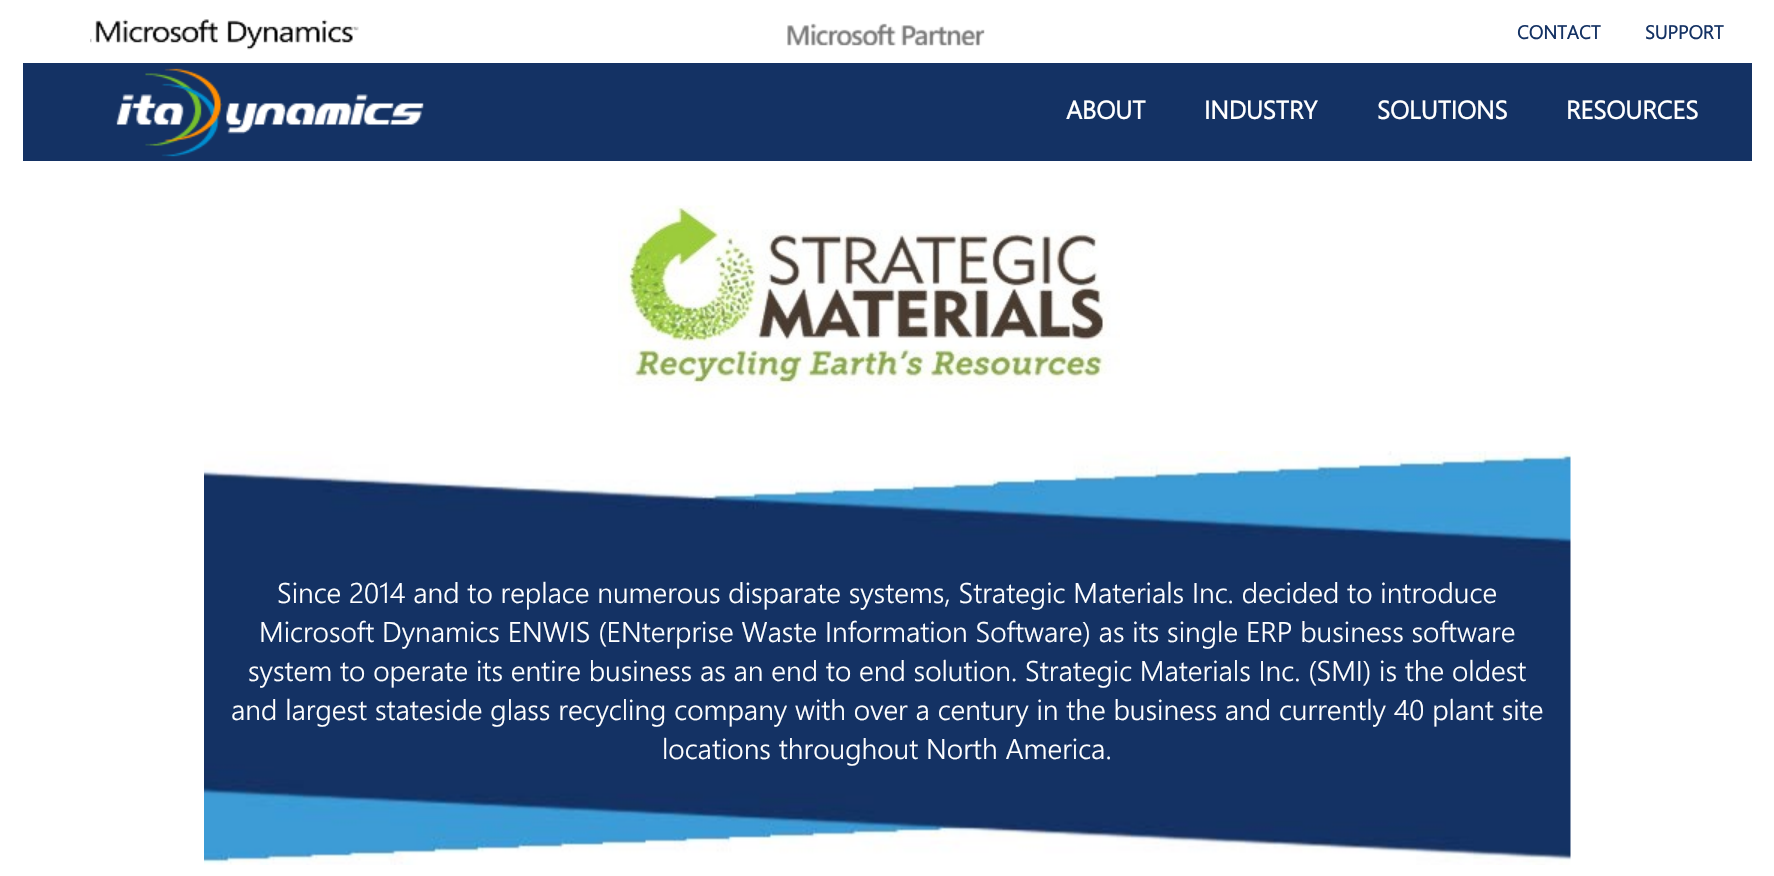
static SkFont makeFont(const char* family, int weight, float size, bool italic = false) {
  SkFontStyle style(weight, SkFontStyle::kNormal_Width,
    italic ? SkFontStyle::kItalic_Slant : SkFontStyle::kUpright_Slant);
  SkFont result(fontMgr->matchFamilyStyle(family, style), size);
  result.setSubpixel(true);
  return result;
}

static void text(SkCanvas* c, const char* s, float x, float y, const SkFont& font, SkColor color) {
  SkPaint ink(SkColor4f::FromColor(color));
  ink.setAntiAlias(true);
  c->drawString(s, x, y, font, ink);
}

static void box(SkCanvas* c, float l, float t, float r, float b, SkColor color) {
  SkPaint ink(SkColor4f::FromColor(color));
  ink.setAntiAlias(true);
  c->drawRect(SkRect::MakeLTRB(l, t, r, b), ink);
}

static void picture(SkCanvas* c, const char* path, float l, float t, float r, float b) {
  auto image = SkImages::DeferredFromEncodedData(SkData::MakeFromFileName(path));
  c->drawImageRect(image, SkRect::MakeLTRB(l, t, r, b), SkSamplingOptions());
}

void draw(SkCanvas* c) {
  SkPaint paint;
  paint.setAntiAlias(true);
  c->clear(0xffffffff);
  picture(c, "img_01.png", 90, 19, 359, 50);
  picture(c, "img_02.png", 787, 23, 985, 46);
  SkFont face1 = makeFont("Segoe UI", 700, 19);
  text(c, "CONTACT", 1517, 39, face1, 0xff143264);
  text(c, "SUPPORT", 1645, 39, face1, 0xff143264);
  box(c, 23, 63, 1752, 161, 0xff143264);
  picture(c, "img_03.png", 116, 68, 424, 157);
  SkFont face2 = makeFont("Segoe UI", 700, 25.25f);
  text(c, "ABOUT", 1066, 119, face2, 0xffffffff);
  text(c, "INDUSTRY", 1204, 119, face2, 0xffffffff);
  text(c, "SOLUTIONS", 1377, 119, face2, 0xffffffff);
  text(c, "RESOURCES", 1566, 119, face2, 0xffffffff);
  picture(c, "img_04.png", 618, 205, 1120, 398);
  picture(c, "img_05.png", 204, 451, 1571, 865);
  SkFont face3 = makeFont("Segoe UI", 300, 28.5f);
  text(c, "Since 2014 and to replace numerous disparate systems, Strategic Materials Inc. decided to introduce", 277, 603, face3, 0xffffffff);
  text(c, "Microsoft Dynamics ENWIS (ENterprise Waste Information Software) as its single ERP business software", 259, 642, face3, 0xffffffff);
  text(c, "system to operate its entire business as an end to end solution. Strategic Materials Inc. (SMI) is the oldest", 248, 681, face3, 0xffffffff);
  text(c, "and largest stateside glass recycling company with over a century in the business and currently 40 plant site", 231, 720, face3, 0xffffffff);
  text(c, "locations throughout North America.", 662, 759, face3, 0xffffffff);
}
